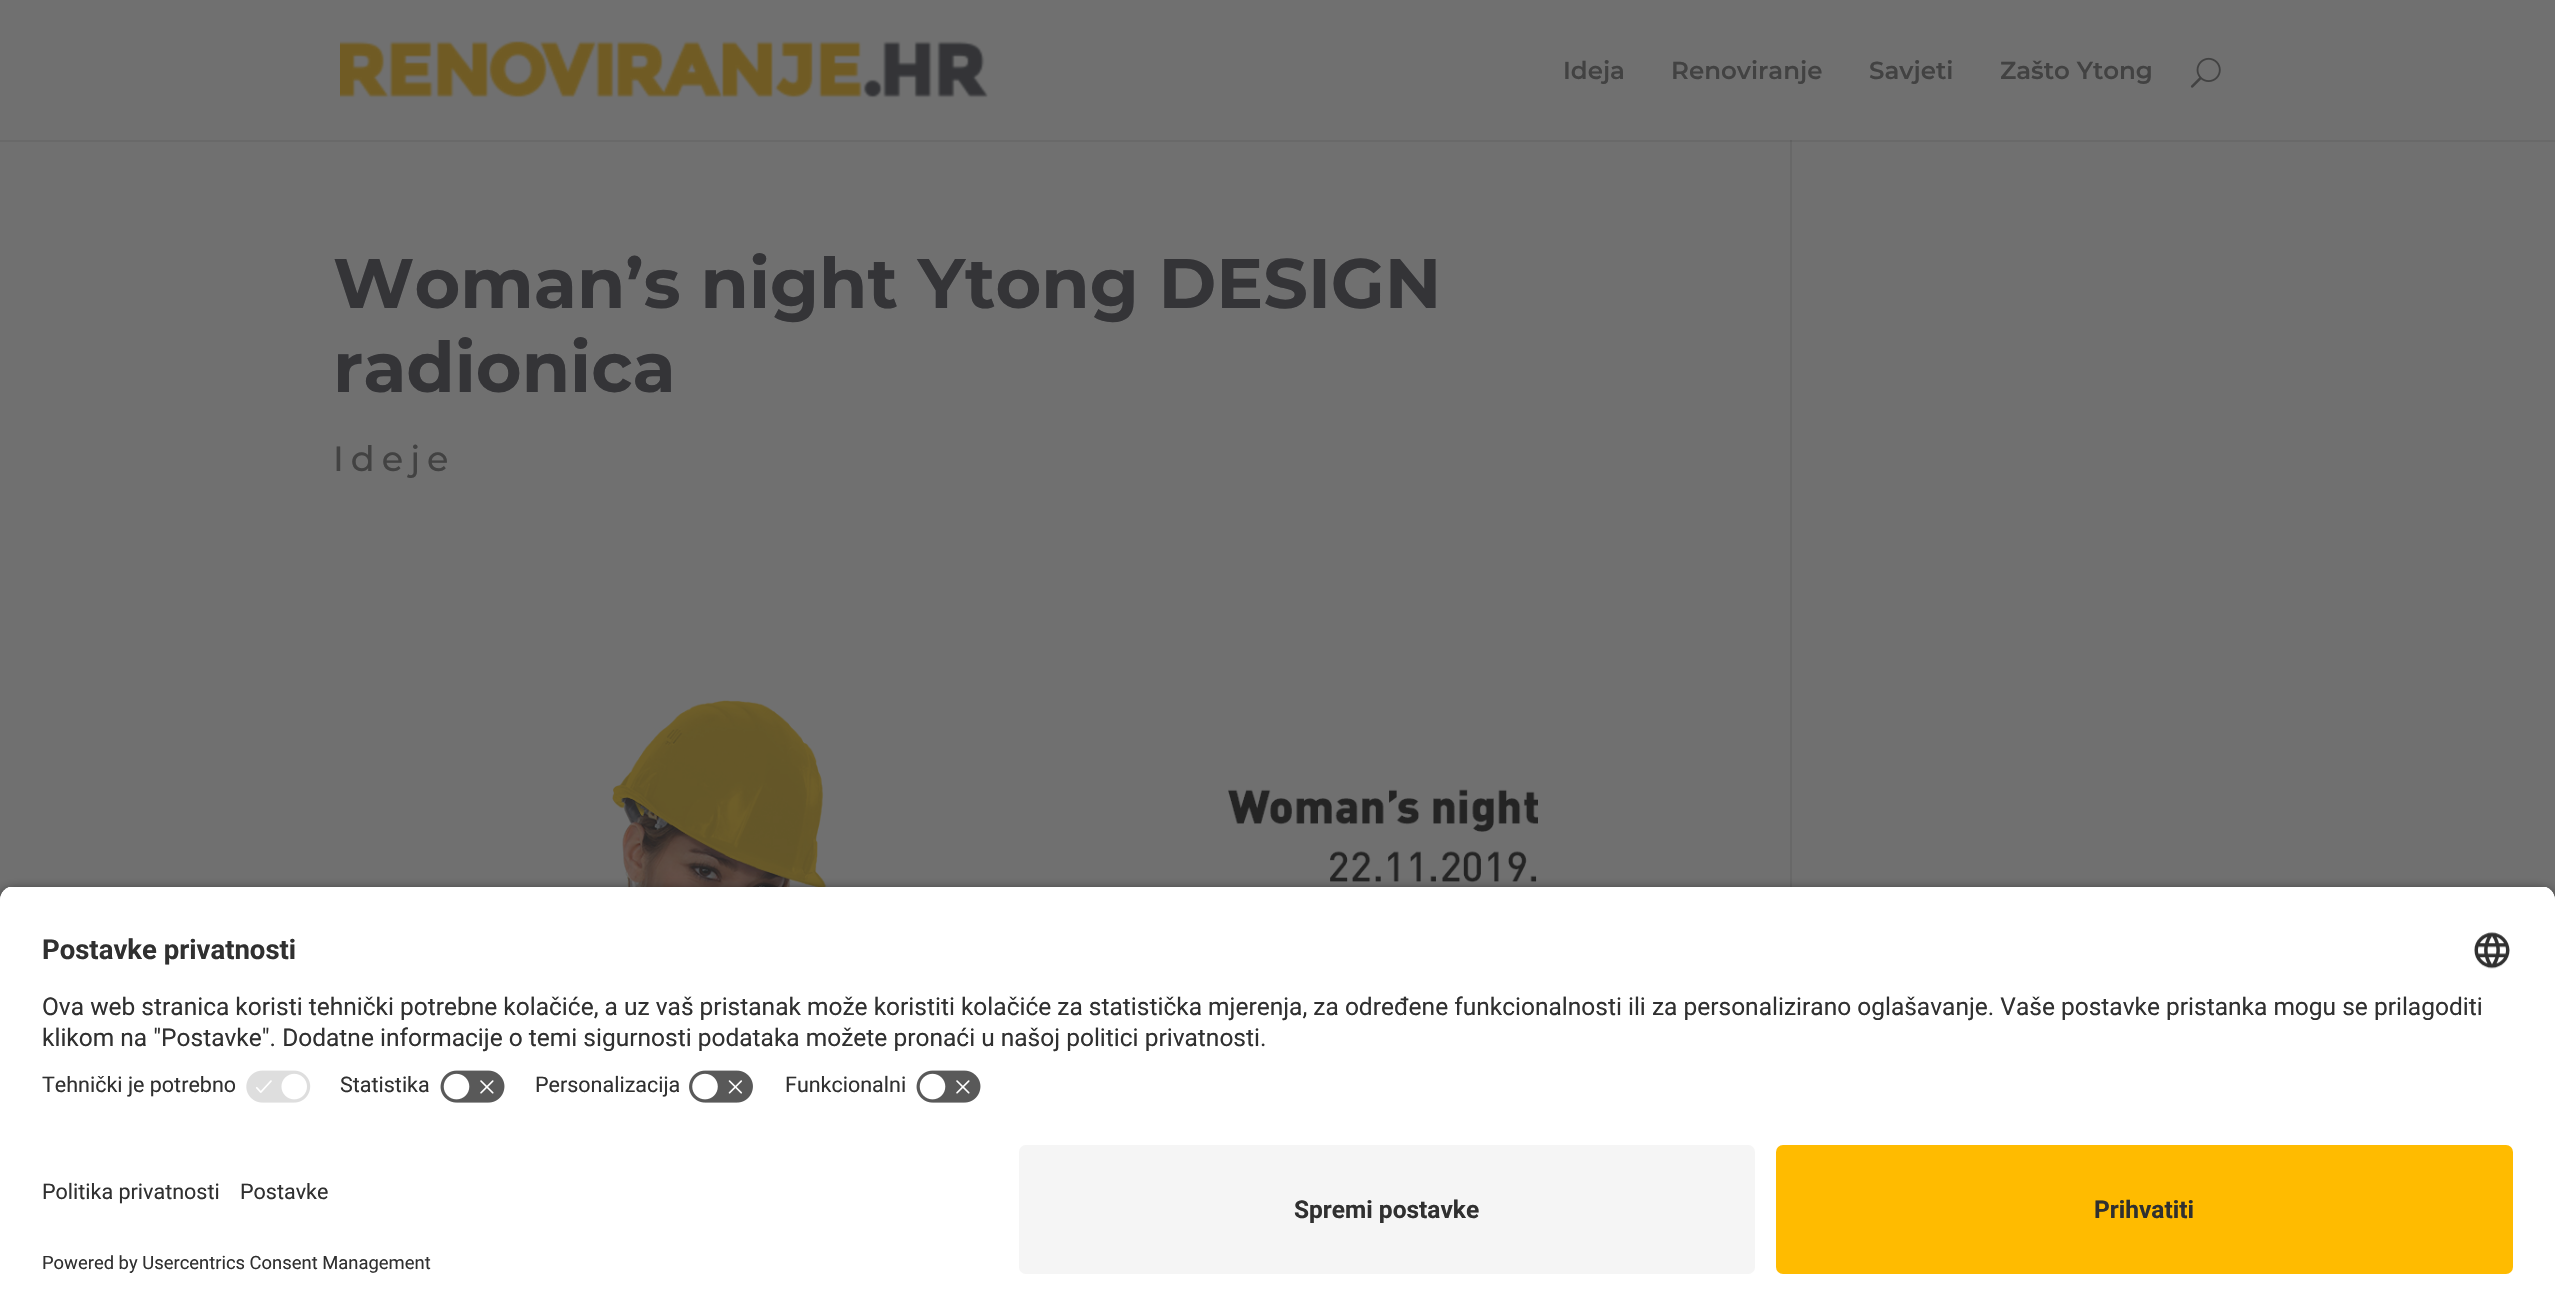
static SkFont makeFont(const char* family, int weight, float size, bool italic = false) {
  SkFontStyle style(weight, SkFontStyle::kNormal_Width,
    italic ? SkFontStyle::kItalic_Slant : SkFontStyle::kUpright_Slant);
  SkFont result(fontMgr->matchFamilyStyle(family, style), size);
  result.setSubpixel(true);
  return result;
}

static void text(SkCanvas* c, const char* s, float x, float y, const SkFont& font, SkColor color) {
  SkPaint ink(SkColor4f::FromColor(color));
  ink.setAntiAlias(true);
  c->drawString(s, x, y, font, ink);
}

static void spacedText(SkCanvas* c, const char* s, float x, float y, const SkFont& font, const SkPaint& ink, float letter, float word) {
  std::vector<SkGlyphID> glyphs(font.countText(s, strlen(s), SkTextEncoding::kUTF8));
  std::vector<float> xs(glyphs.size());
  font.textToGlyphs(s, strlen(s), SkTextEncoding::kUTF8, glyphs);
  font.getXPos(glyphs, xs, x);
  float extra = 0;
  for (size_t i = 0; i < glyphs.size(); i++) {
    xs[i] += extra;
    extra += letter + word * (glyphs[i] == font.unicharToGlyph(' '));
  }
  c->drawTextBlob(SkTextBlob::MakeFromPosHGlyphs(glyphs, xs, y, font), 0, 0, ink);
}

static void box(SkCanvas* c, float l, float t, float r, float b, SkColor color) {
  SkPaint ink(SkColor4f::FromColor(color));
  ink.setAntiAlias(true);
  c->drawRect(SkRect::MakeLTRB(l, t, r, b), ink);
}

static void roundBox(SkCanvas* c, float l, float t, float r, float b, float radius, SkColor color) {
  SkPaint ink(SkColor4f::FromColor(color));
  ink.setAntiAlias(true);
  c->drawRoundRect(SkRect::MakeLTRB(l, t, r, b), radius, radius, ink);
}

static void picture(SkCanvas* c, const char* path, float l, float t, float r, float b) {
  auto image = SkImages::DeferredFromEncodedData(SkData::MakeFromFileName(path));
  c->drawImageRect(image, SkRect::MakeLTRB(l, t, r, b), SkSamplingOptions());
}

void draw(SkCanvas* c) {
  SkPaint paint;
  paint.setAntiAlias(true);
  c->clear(0xff707070);
  box(c, 0, 140, 2555, 142, 0xff696969);
  picture(c, "img_01.png", 340, 41, 988, 98);
  SkFont face1 = makeFont("Montserrat", 600, 24.5f);
  text(c, "Ideja", 1563, 79, face1, 0xff424242);
  text(c, "Renoviranje", 1671, 79, face1, 0xff424242);
  text(c, "Savjeti", 1869, 79, face1, 0xff424242);
  text(c, "Zašto Ytong", 2000, 79, face1, 0xff424242);
  picture(c, "img_02.png", 2190, 57, 2221, 88);
  SkFont face2 = makeFont("Montserrat", 700, 70);
  text(c, "Woman’s night Ytong DESIGN", 333, 308, face2, 0xff343437);
  text(c, "radionica", 333, 392, face2, 0xff343437);
  SkFont face3 = makeFont("Montserrat", 500, 35);
  paint.setColor(0xff424242);
  spacedText(c, "Ideje", 333, 471, face3, paint, 7, 0);
  picture(c, "img_03.png", 521, 700, 1541, 887);
  box(c, 1790, 140, 1792, 887, 0xff686868);
  box(c, 1790, 140, 1792, 142, 0xff616161);
  paint.setColor(0xcc000000);
  paint.setMaskFilter(SkMaskFilter::MakeBlur(kNormal_SkBlurStyle, 6));
  c->drawRoundRect(SkRect::MakeLTRB(0, 891, 2555, 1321), 14, 14, paint);
  paint.setMaskFilter(nullptr);
  c->save();
  c->clipPath(SkPathBuilder().moveTo(14, 886).lineTo(2541, 886).cubicTo(2548.5f, 886, 2555, 892.5f, 2555, 900).lineTo(2555, 1131).lineTo(0, 1131).lineTo(0, 900).cubicTo(0, 892.5f, 6.5f, 886, 14, 886).close().detach(), true);
  box(c, 0, 887, 2555, 1131, 0xffffffff);
  box(c, 0, 887, 2555, 1061, 0xffffffff);
  c->restore();
  SkFont face4 = makeFont("Roboto", 700, 27.5f);
  text(c, "Postavke privatnosti", 42, 959, face4, 0xff303030);
  picture(c, "img_04.png", 2474, 932, 2510, 969);
  SkFont face5 = makeFont("Roboto", 400, 24.5f);
  text(c, "Ova web stranica koristi tehnički potrebne kolačiće, a uz vaš pristanak može koristiti kolačiće za statistička mjerenja, za određene funkcionalnosti ili za personalizirano oglašavanje. Vaše postavke pristanka mogu se prilagoditi", 42, 1015, face5, 0xff303030);
  text(c, "klikom na \"Postavke\". Dodatne informacije o temi sigurnosti podataka možete pronaći u našoj politici privatnosti.", 42, 1046, face5, 0xff303030);
  SkFont face6 = makeFont("Roboto", 400, 21.5f);
  text(c, "Tehnički je potrebno", 42, 1092, face6, 0xff303030);
  picture(c, "img_05.png", 246, 1070, 311, 1103);
  text(c, "Statistika", 340, 1092, face6, 0xff303030);
  picture(c, "img_06.png", 440, 1070, 505, 1103);
  text(c, "Personalizacija", 535, 1092, face6, 0xff303030);
  picture(c, "img_07.png", 689, 1070, 753, 1103);
  text(c, "Funkcionalni", 785, 1092, face6, 0xff303030);
  picture(c, "img_06.png", 916, 1070, 981, 1103);
  box(c, 0, 1131, 2555, 1315, 0xffffffff);
  text(c, "Politika privatnosti", 42, 1199, face6, 0xff303030);
  text(c, "Postavke", 240, 1199, face6, 0xff303030);
  SkFont face7 = makeFont("Roboto", 400, 18.4f);
  text(c, "Powered by Usercentrics Consent Management", 42, 1269, face7, 0xff303030);
  roundBox(c, 1019, 1145, 1755, 1274, 7, 0xfff5f5f5);
  SkFont face8 = makeFont("Roboto", 700, 24.5f);
  text(c, "Spremi postavke", 1294, 1218, face8, 0xff303030);
  roundBox(c, 1776, 1145, 2513, 1274, 7, 0xffffbb00);
  text(c, "Prihvatiti", 2094, 1218, face8, 0xff303030);
}
